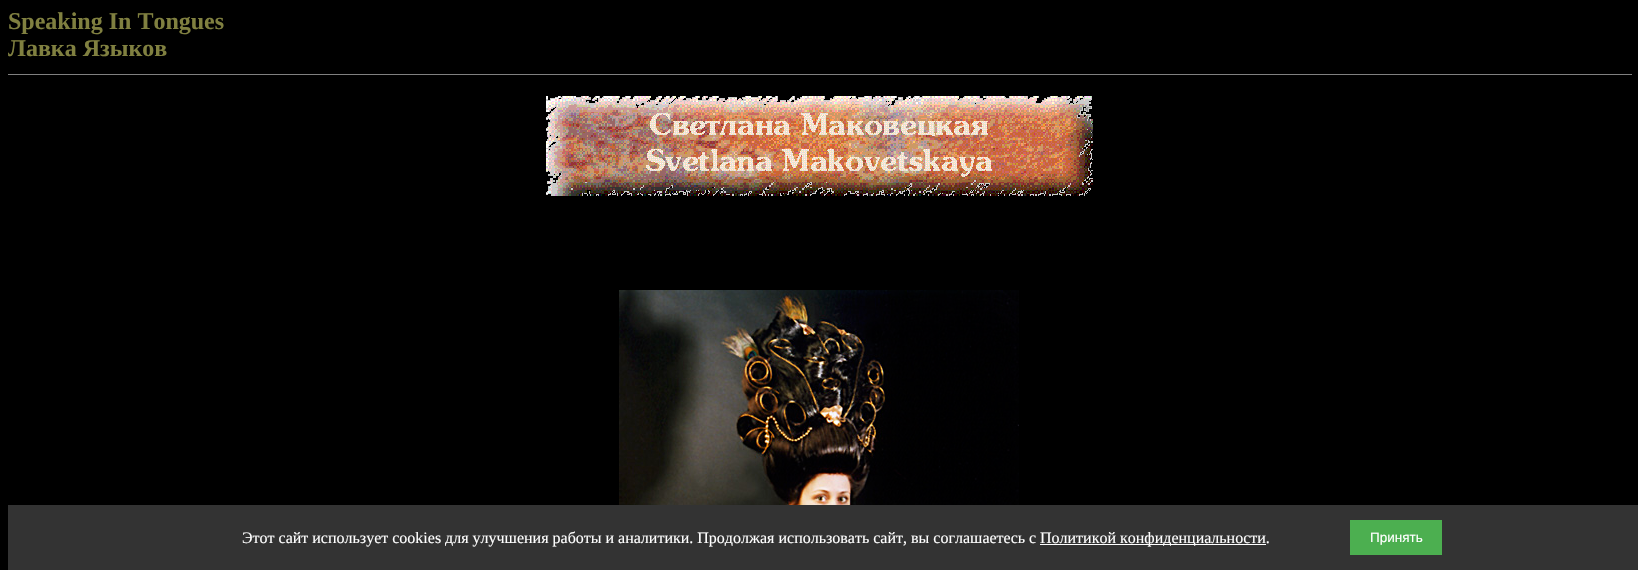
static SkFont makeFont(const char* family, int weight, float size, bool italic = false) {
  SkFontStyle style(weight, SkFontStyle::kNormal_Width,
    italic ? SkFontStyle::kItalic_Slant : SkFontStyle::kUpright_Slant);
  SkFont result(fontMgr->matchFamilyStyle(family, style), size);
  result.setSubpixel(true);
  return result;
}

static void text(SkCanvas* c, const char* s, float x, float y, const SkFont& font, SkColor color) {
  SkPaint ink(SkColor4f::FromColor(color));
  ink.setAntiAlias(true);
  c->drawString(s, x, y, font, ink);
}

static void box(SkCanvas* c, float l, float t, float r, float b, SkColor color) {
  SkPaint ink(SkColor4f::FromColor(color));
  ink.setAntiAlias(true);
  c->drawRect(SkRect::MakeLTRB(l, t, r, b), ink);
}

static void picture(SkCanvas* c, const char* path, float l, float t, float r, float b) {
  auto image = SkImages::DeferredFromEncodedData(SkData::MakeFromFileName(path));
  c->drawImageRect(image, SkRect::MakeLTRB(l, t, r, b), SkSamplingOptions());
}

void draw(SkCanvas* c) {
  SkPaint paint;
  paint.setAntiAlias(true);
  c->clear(0xff000000);
  SkFont face1 = makeFont("Liberation Serif", 700, 24);
  text(c, "Speaking In Tongues", 8, 29, face1, 0xff808040);
  text(c, "Лавка Языков", 8, 56, face1, 0xff808040);
  box(c, 8, 74, 1632, 75, 0xff808080);
  picture(c, "img_01.png", 546, 96, 1093, 196);
  picture(c, "img_02.png", 619, 290, 1019, 505);
  box(c, 8, 505, 1638, 570, 0xff333333);
  SkFont face2 = makeFont("Liberation Serif", 400, 16);
  text(c, "Этот сайт использует cookies для улучшения работы и аналитики. Продолжая использовать сайт, вы соглашаетесь с", 242, 543, face2, 0xffffffff);
  box(c, 1040, 544, 1266, 545, 0xffffffff);
  text(c, "Политикой конфиденциальности.", 1040, 543, face2, 0xffffffff);
  box(c, 1350, 520, 1442, 555, 0xff4caf50);
  SkFont face3 = makeFont("Liberation Sans", 400, 13.5f);
  text(c, "Принять", 1370, 542, face3, 0xffffffff);
}
